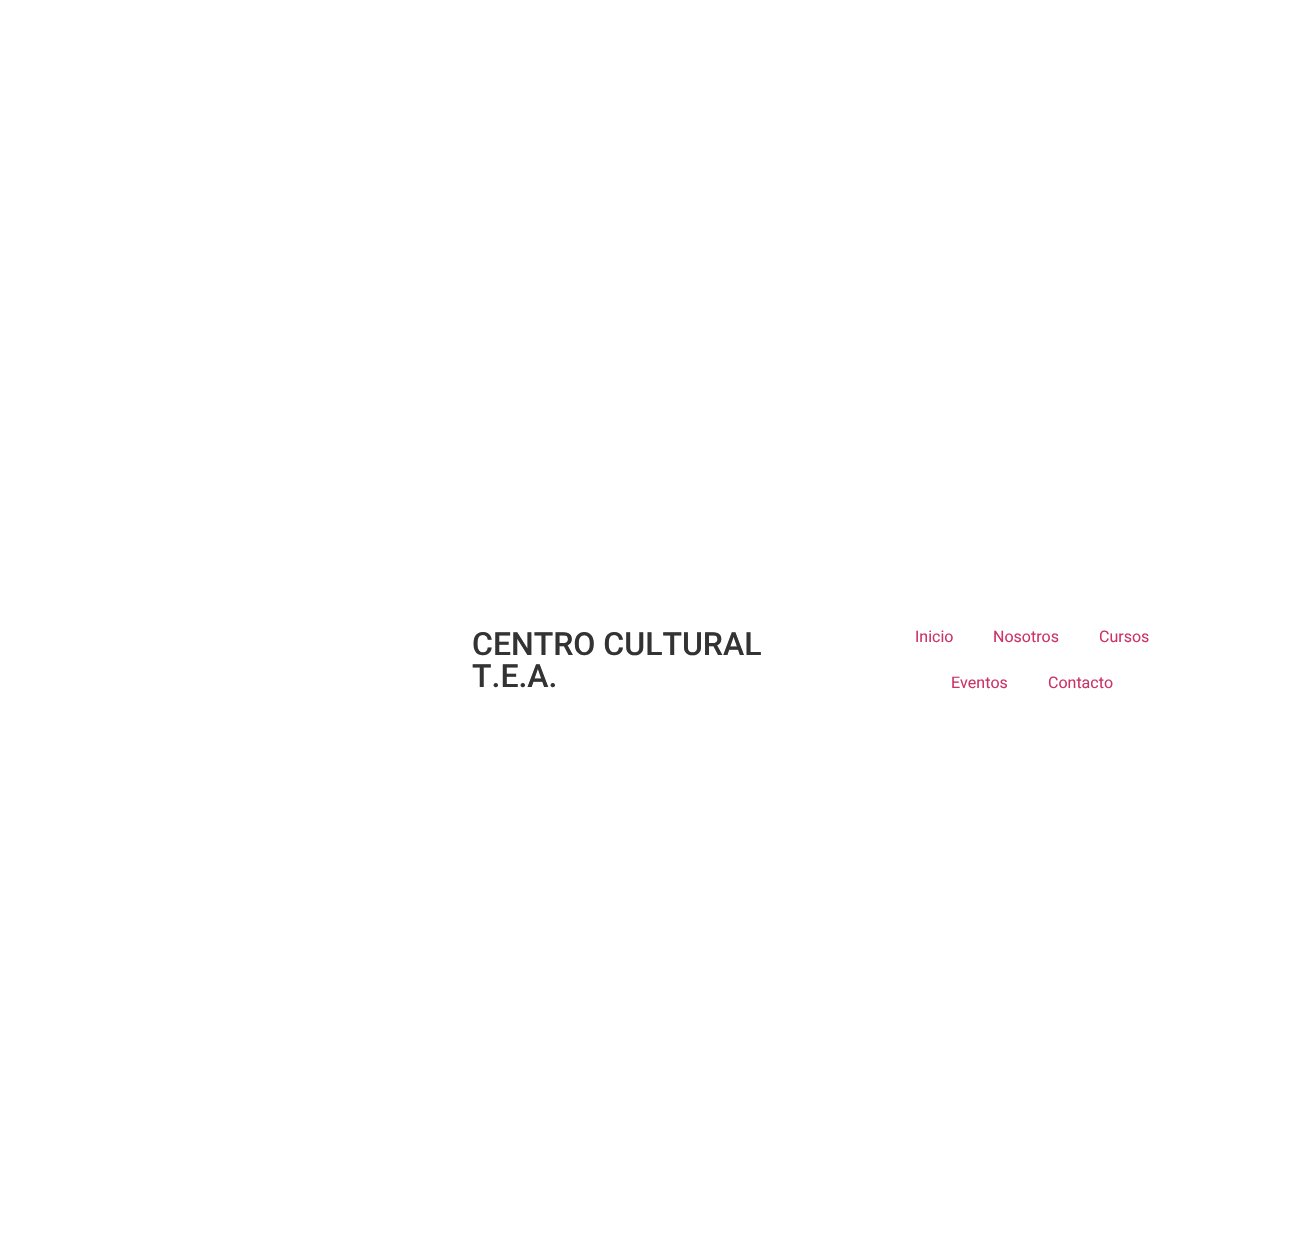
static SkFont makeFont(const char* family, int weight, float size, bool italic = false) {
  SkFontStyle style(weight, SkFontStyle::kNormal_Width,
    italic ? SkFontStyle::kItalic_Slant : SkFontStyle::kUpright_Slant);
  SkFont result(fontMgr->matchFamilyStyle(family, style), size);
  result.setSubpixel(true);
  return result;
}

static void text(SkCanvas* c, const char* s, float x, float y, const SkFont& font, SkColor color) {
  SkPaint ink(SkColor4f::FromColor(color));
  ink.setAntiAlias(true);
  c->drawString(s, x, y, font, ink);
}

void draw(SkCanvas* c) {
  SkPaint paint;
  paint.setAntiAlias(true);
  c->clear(0xffffffff);
  SkFont face1 = makeFont("Roboto", 500, 32);
  text(c, "CENTRO CULTURAL", 472, 655, face1, 0xff333333);
  text(c, "T.E.A.", 472, 687, face1, 0xff333333);
  SkFont face2 = makeFont("Roboto", 400, 16);
  text(c, "Inicio", 915, 642, face2, 0xffcc3366);
  text(c, "Nosotros", 993, 642, face2, 0xffcc3366);
  text(c, "Cursos", 1099, 642, face2, 0xffcc3366);
  text(c, "Eventos", 951, 688, face2, 0xffcc3366);
  text(c, "Contacto", 1048, 688, face2, 0xffcc3366);
}
